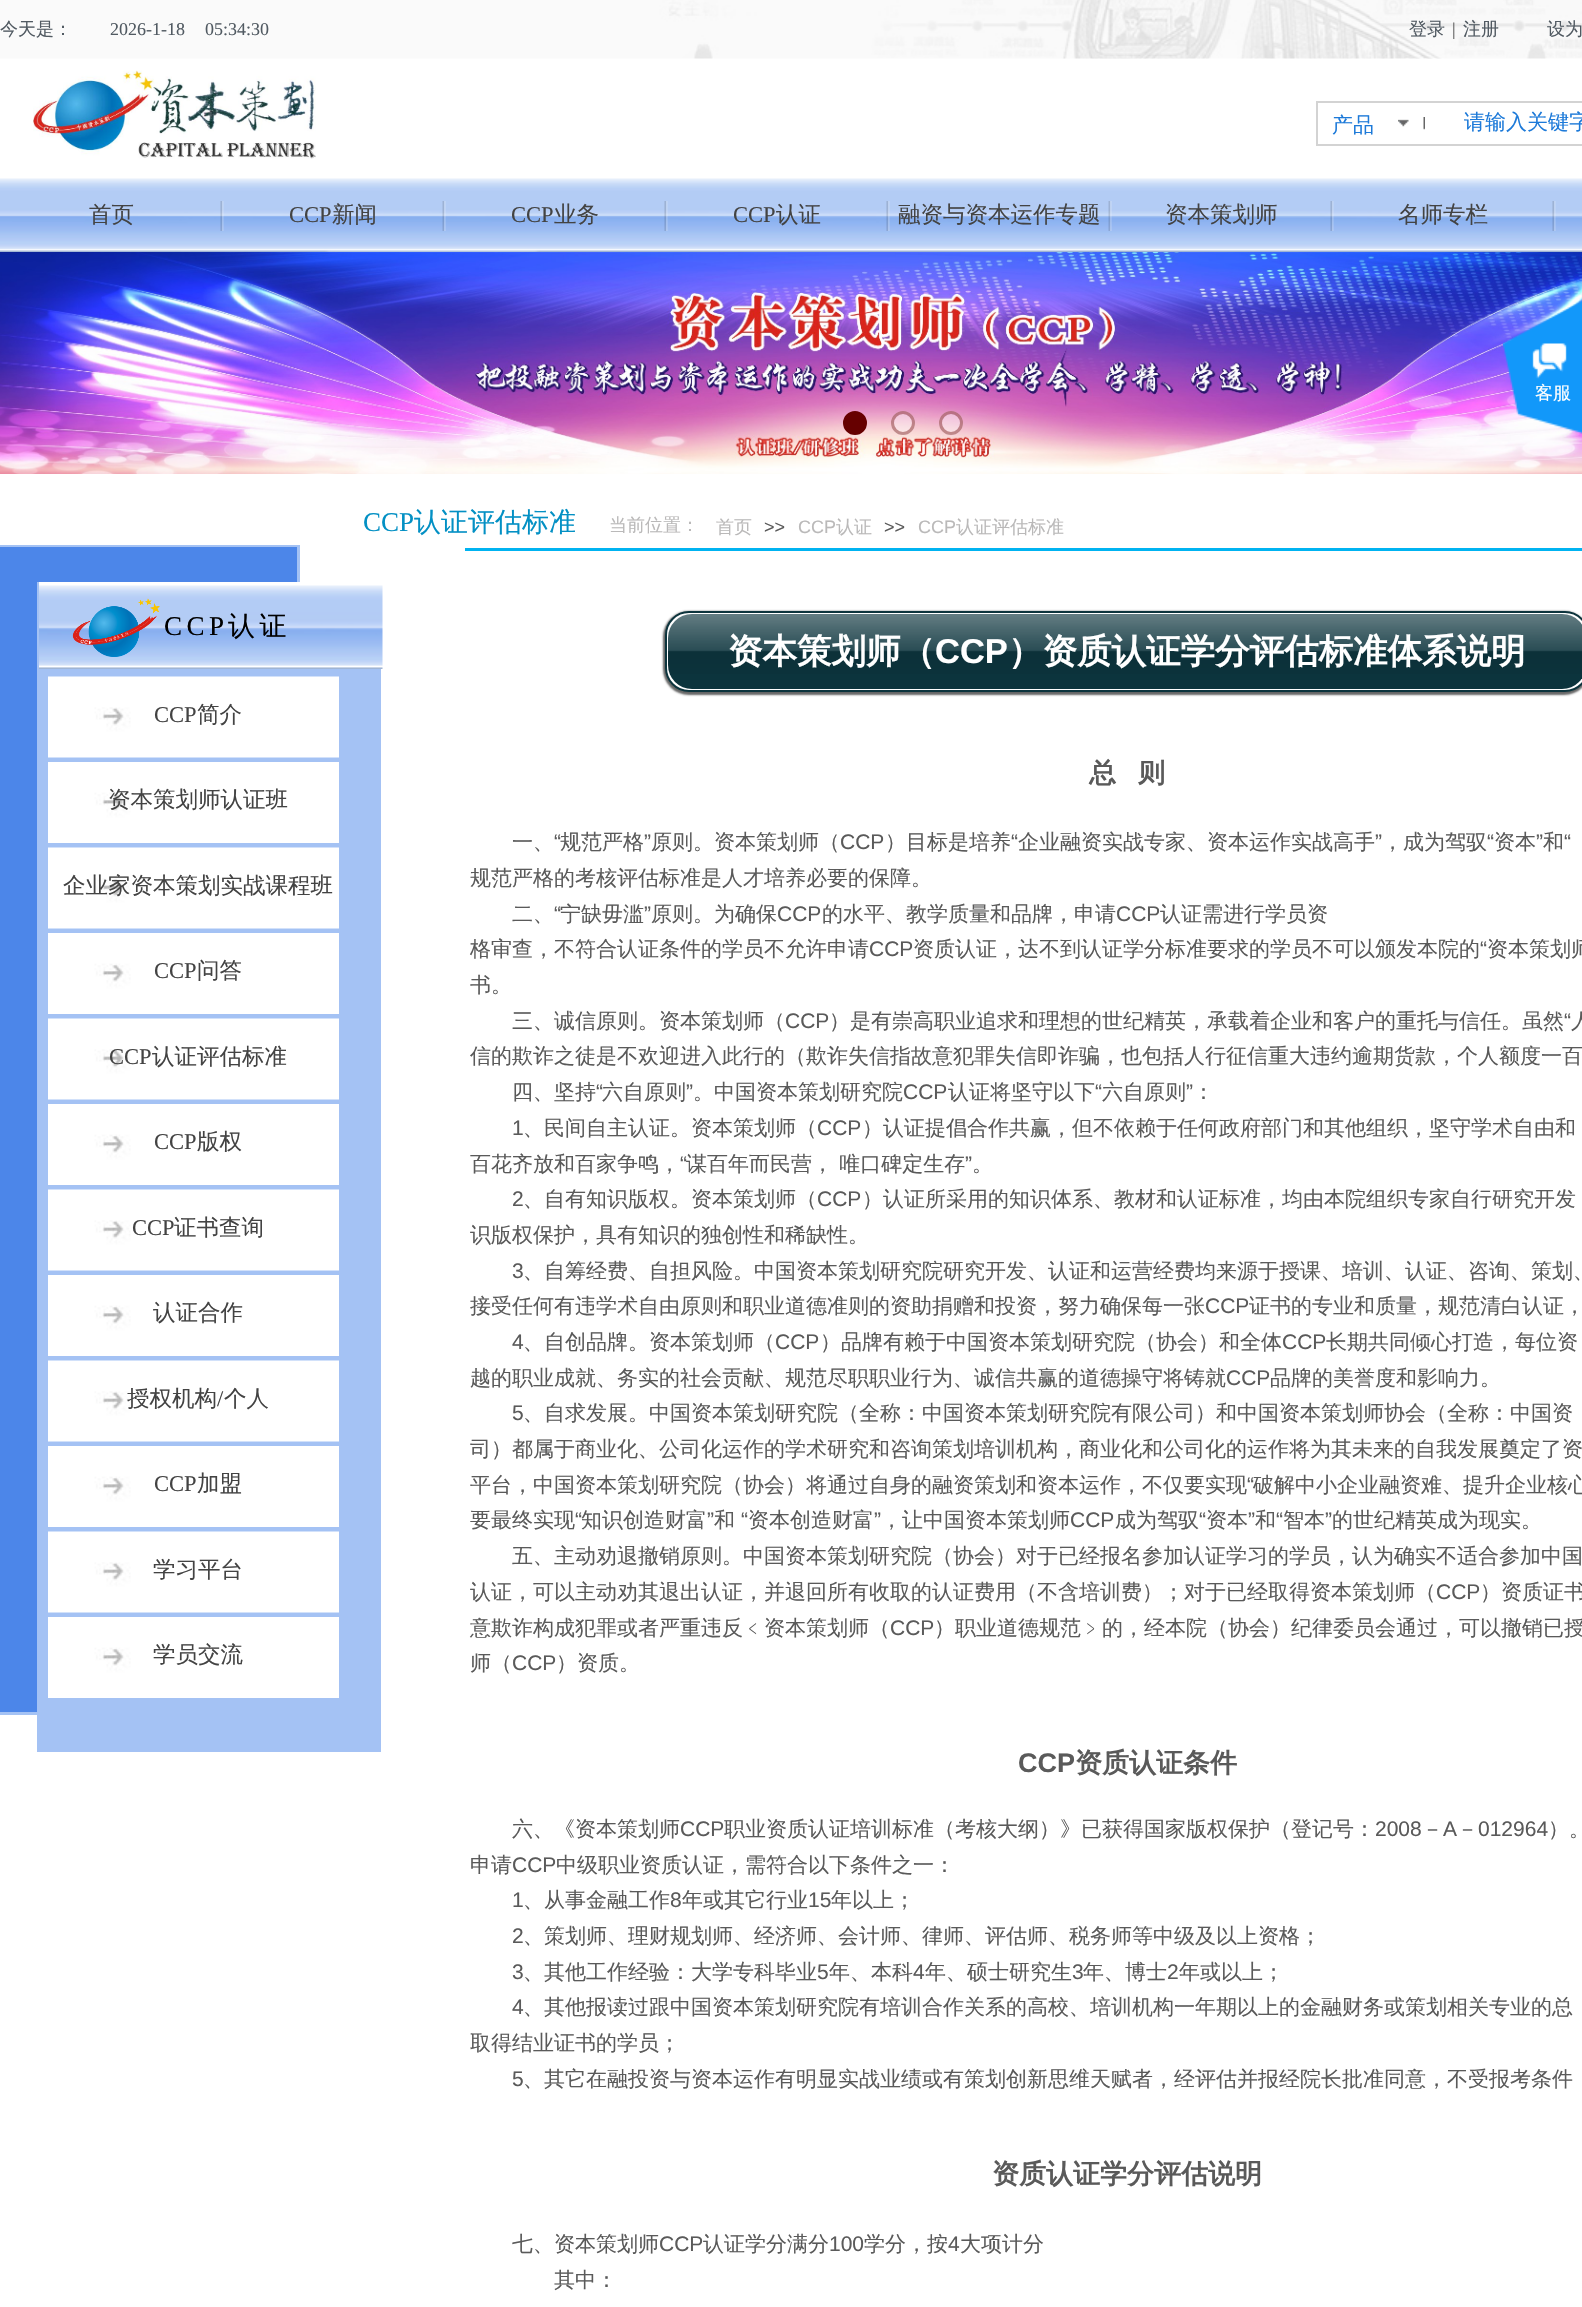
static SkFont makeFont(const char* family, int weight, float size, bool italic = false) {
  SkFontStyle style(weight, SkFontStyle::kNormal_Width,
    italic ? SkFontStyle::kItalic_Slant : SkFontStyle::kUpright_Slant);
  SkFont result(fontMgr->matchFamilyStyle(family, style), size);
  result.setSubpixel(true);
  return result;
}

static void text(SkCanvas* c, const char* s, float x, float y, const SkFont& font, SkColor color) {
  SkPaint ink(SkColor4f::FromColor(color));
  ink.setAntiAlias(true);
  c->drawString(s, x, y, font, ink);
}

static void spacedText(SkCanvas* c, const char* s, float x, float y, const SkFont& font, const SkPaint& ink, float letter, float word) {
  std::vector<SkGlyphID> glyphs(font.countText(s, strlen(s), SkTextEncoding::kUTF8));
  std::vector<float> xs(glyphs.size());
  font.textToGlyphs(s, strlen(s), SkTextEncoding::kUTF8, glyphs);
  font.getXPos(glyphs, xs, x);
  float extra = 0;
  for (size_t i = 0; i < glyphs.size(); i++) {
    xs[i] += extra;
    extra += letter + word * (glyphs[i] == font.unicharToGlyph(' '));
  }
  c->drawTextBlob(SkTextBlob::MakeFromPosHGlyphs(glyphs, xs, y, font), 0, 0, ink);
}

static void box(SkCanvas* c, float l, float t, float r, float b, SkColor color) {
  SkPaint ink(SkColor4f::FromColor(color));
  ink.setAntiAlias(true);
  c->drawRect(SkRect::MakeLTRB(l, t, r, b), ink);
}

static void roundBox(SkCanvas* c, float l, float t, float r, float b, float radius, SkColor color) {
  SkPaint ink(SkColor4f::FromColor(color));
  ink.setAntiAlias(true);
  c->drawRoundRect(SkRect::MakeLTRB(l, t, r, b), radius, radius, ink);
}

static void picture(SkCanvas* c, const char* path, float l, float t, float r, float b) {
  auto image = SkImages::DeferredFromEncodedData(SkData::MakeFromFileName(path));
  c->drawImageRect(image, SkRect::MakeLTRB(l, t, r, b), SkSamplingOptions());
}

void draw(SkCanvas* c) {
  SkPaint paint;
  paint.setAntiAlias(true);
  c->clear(0xffffffff);
  picture(c, "img_01.png", 0, 0, 1582, 59);
  SkFont face1 = makeFont("WenQuanYi Zen Hei", 500, 18);
  text(c, "今天是：", 0, 35, face1, 0xff515a62);
  SkFont face2 = makeFont("Liberation Serif", 400, 18);
  text(c, "2026-1-18", 110, 35, face2, 0xff515a62);
  text(c, "05:34:30", 205, 35, face2, 0xff515a62);
  text(c, "登录", 1409, 35, face1, 0xff515a62);
  text(c, "|", 1452, 35, face2, 0xff5a5a5a);
  text(c, "注册", 1463, 35, face1, 0xff515a62);
  text(c, "设为", 1547, 35, face1, 0xff515a62);
  picture(c, "img_02.png", 33, 70, 316, 159);
  paint.setStyle(SkPaint::kStroke_Style);
  paint.setStrokeWidth(2);
  paint.setColor(0xffd3d3d3);
  c->drawRect(SkRect::MakeLTRB(1317, 102, 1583, 145), paint);
  picture(c, "img_03.png", 1398, 117, 1425, 130);
  SkFont face3 = makeFont("WenQuanYi Zen Hei", 500, 21);
  text(c, "产品", 1332, 132, face3, 0xff1d7ad9);
  text(c, "请输入关键字", 1464, 129, face3, 0xff1d7ad9);
  picture(c, "img_04.png", 0, 178, 1582, 252);
  picture(c, "img_05.png", 220, 201, 224, 231);
  picture(c, "img_06.png", 442, 201, 446, 231);
  picture(c, "img_07.png", 664, 201, 668, 231);
  picture(c, "img_08.png", 886, 201, 890, 231);
  picture(c, "img_09.png", 1108, 201, 1112, 231);
  picture(c, "img_10.png", 1330, 201, 1334, 231);
  picture(c, "img_11.png", 1552, 201, 1556, 231);
  SkFont face4 = makeFont("WenQuanYi Zen Hei", 500, 22.5f);
  text(c, "首页", 89, 222, face4, 0xff434343);
  SkFont face5 = makeFont("Liberation Serif", 400, 22.5f);
  text(c, "CCP", 289, 222, face5, 0xff434343);
  text(c, "新闻", 332, 222, face4, 0xff434343);
  text(c, "CCP", 511, 222, face5, 0xff434343);
  text(c, "业务", 554, 222, face4, 0xff434343);
  text(c, "CCP", 733, 222, face5, 0xff434343);
  text(c, "认证", 776, 222, face4, 0xff434343);
  text(c, "融资与资本运作专题", 898, 222, face4, 0xff434343);
  text(c, "资本策划师", 1165, 222, face4, 0xff434343);
  text(c, "名师专栏", 1398, 222, face4, 0xff434343);
  picture(c, "img_12.png", 0, 252, 1582, 474);
  paint.setStyle(SkPaint::kFill_Style);
  paint.setColor(0xff660000);
  c->drawCircle(855, 423, 10.5f, paint);
  paint.setStyle(SkPaint::kStroke_Style);
  paint.setStrokeWidth(3);
  c->drawCircle(855, 423, 10.5f, paint);
  paint.setStyle(SkPaint::kFill_Style);
  paint.setColor(0x66ffffff);
  c->drawCircle(903, 423, 12, paint);
  paint.setStyle(SkPaint::kStroke_Style);
  paint.setColor(0x66660000);
  c->drawCircle(903, 423, 10.5f, paint);
  paint.setStyle(SkPaint::kFill_Style);
  paint.setColor(0x66ffffff);
  c->drawCircle(951, 423, 12, paint);
  paint.setStyle(SkPaint::kStroke_Style);
  paint.setColor(0x66660000);
  c->drawCircle(951, 423, 10.5f, paint);
  SkFont face6 = makeFont("Liberation Serif", 400, 27);
  text(c, "CCP", 363, 531, face6, 0xff0390c4);
  SkFont face7 = makeFont("WenQuanYi Zen Hei", 500, 27);
  text(c, "认证评估标准", 414, 531, face7, 0xff0390c4);
  text(c, "当前位置：", 609, 531, face1, 0xffbab9b9);
  text(c, "首页", 716, 533, face1, 0xffbab9b9);
  SkFont face8 = makeFont("Liberation Sans", 400, 18);
  text(c, ">>", 764, 533, face8, 0xff5a5a5a);
  text(c, "CCP", 798, 533, face8, 0xffbab9b9);
  text(c, "认证", 836, 533, face1, 0xffbab9b9);
  text(c, ">>", 884, 533, face8, 0xff5a5a5a);
  text(c, "CCP", 918, 533, face8, 0xffbab9b9);
  text(c, "认证评估标准", 956, 533, face1, 0xffbab9b9);
  paint.setColor(0xffa4c2f4);
  c->drawRect(SkRect::MakeLTRB(-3.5f, 546.5f, 298.5f, 1713.5f), paint);
  box(c, 0, 547, 297, 1712, 0xff4c86e9);
  box(c, 465, 548, 1582, 551, 0xff00b3f1);
  box(c, 37, 582, 381, 1752, 0xffa4c2f4);
  picture(c, "img_13.png", 39, 582, 383, 669);
  picture(c, "img_14.png", 72, 598, 160, 657);
  picture(c, "img_15.png", 72, 598, 160, 657);
  paint.setStyle(SkPaint::kFill_Style);
  paint.setColor(0xff000000);
  spacedText(c, "CCP", 164, 635, face6, paint, 4.5f, 0);
  spacedText(c, "认证", 228, 635, face7, paint, 4.5f, 0);
  paint.setColor(0x99000000);
  paint.setMaskFilter(SkMaskFilter::MakeBlur(kNormal_SkBlurStyle, 1));
  c->drawRoundRect(SkRect::MakeLTRB(663, 611, 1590, 695), 26, 26, paint);
  paint.setMaskFilter(nullptr);
  paint.setColor(0xffffffff);
  c->drawRoundRect(SkRect::MakeLTRB(666, 612, 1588, 691), 23, 23, paint);
  paint.setStyle(SkPaint::kStroke_Style);
  paint.setStrokeWidth(2);
  paint.setColor(0xff0c343d);
  c->drawRoundRect(SkRect::MakeLTRB(666, 612, 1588, 691), 23, 23, paint);
  roundBox(c, 668, 614, 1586, 689, 24, 0xff0c343d);
  picture(c, "img_16.png", 668, 614, 1582, 674);
  SkFont face9 = makeFont("WenQuanYi Zen Hei", 700, 34.5f);
  text(c, "资本策划师（", 728, 663, face9, 0xffffffff);
  SkFont face10 = makeFont("Liberation Sans", 700, 34.5f);
  text(c, "CCP", 935, 663, face10, 0xffffffff);
  text(c, "）资质认证学分评估标准体系说明", 1008, 663, face9, 0xffffffff);
  picture(c, "img_17.png", 48, 676, 339, 758);
  text(c, "CCP", 154, 722, face5, 0xff434343);
  text(c, "简介", 197, 722, face4, 0xff434343);
  picture(c, "img_18.png", 48, 762, 339, 843);
  text(c, "资本策划师认证班", 108, 807, face4, 0xff434343);
  picture(c, "img_17.png", 48, 847, 339, 929);
  text(c, "企业家资本策划实战课程班", 63, 893, face4, 0xff434343);
  picture(c, "img_18.png", 48, 933, 339, 1014);
  text(c, "CCP", 154, 978, face5, 0xff434343);
  text(c, "问答", 197, 978, face4, 0xff434343);
  picture(c, "img_17.png", 48, 1018, 339, 1100);
  text(c, "CCP", 109, 1064, face5, 0xff434343);
  text(c, "认证评估标准", 152, 1064, face4, 0xff434343);
  picture(c, "img_18.png", 48, 1104, 339, 1185);
  text(c, "CCP", 154, 1149, face5, 0xff434343);
  text(c, "版权", 197, 1149, face4, 0xff434343);
  picture(c, "img_17.png", 48, 1189, 339, 1271);
  text(c, "CCP", 132, 1235, face5, 0xff434343);
  text(c, "证书查询", 174, 1235, face4, 0xff434343);
  picture(c, "img_18.png", 48, 1275, 339, 1356);
  text(c, "认证合作", 153, 1320, face4, 0xff434343);
  picture(c, "img_17.png", 48, 1360, 339, 1442);
  text(c, "授权机构", 127, 1406, face4, 0xff434343);
  text(c, "/", 217, 1406, face5, 0xff434343);
  text(c, "个人", 224, 1406, face4, 0xff434343);
  picture(c, "img_18.png", 48, 1446, 339, 1527);
  text(c, "CCP", 154, 1491, face5, 0xff434343);
  text(c, "加盟", 197, 1491, face4, 0xff434343);
  picture(c, "img_17.png", 48, 1531, 339, 1613);
  text(c, "学习平台", 153, 1577, face4, 0xff434343);
  picture(c, "img_18.png", 48, 1617, 339, 1698);
  text(c, "学员交流", 153, 1662, face4, 0xff434343);
  SkFont face11 = makeFont("WenQuanYi Zen Hei", 700, 27);
  text(c, "总", 1089, 782, face11, 0xff5a5a5a);
  text(c, "则", 1138, 782, face11, 0xff5a5a5a);
  SkFont face12 = makeFont("Liberation Sans", 400, 21);
  text(c, "“", 554, 849, face12, 0xff5a5a5a);
  text(c, "规范严格", 560, 849, face3, 0xff5a5a5a);
  text(c, "”", 644, 849, face12, 0xff5a5a5a);
  text(c, "原则。资本策划师（", 651, 849, face3, 0xff5a5a5a);
  text(c, "CCP", 840, 849, face12, 0xff5a5a5a);
  text(c, "）目标是培养", 885, 849, face3, 0xff5a5a5a);
  text(c, "“", 1011, 849, face12, 0xff5a5a5a);
  text(c, "企业融资实战专家、资本运作实战高手", 1018, 849, face3, 0xff5a5a5a);
  text(c, "”", 1375, 849, face12, 0xff5a5a5a);
  text(c, "，成为驾驭", 1382, 849, face3, 0xff5a5a5a);
  text(c, "“", 1487, 849, face12, 0xff5a5a5a);
  text(c, "资本", 1494, 849, face3, 0xff5a5a5a);
  text(c, "”", 1536, 849, face12, 0xff5a5a5a);
  text(c, "和", 1543, 849, face3, 0xff5a5a5a);
  text(c, "“", 1564, 849, face12, 0xff5a5a5a);
  text(c, "一、", 512, 849, face3, 0xff5a5a5a);
  text(c, "规范严格的考核评估标准是人才培养必要的保障。", 470, 885, face3, 0xff5a5a5a);
  text(c, "二、", 512, 921, face3, 0xff5a5a5a);
  text(c, "“", 554, 921, face12, 0xff5a5a5a);
  text(c, "宁缺毋滥", 560, 921, face3, 0xff5a5a5a);
  text(c, "”", 644, 921, face12, 0xff5a5a5a);
  text(c, "原则。为确保", 651, 921, face3, 0xff5a5a5a);
  text(c, "CCP", 777, 921, face12, 0xff5a5a5a);
  text(c, "的水平、教学质量和品牌，申请", 822, 921, face3, 0xff5a5a5a);
  text(c, "CCP", 1116, 921, face12, 0xff5a5a5a);
  text(c, "认证需进行学员资", 1160, 921, face3, 0xff5a5a5a);
  text(c, "格审查，不符合认证条件的学员不允许申请", 470, 956, face3, 0xff5a5a5a);
  text(c, "CCP", 869, 956, face12, 0xff5a5a5a);
  text(c, "资质认证，达不到认证学分标准要求的学员不可以颁发本院的", 913, 956, face3, 0xff5a5a5a);
  text(c, "“", 1480, 956, face12, 0xff5a5a5a);
  text(c, "资本策划师", 1487, 956, face3, 0xff5a5a5a);
  text(c, "书。", 470, 992, face3, 0xff5a5a5a);
  text(c, "三、诚信原则。资本策划师（", 512, 1028, face3, 0xff5a5a5a);
  text(c, "CCP", 785, 1028, face12, 0xff5a5a5a);
  text(c, "）是有崇高职业追求和理想的世纪精英，承载着企业和客户的重托与信任。虽然", 829, 1028, face3, 0xff5a5a5a);
  text(c, "“", 1564, 1028, face12, 0xff5a5a5a);
  text(c, "人", 1571, 1028, face3, 0xff5a5a5a);
  text(c, "信的欺诈之徒是不欢迎进入此行的（欺诈失信指故意犯罪失信即诈骗，也包括人行征信重大违约逾期货款，个人额度一百", 470, 1063, face3, 0xff5a5a5a);
  text(c, "四、坚持", 512, 1099, face3, 0xff5a5a5a);
  text(c, "“", 596, 1099, face12, 0xff5a5a5a);
  text(c, "六自原则", 602, 1099, face3, 0xff5a5a5a);
  text(c, "”", 686, 1099, face12, 0xff5a5a5a);
  text(c, "。中国资本策划研究院", 693, 1099, face3, 0xff5a5a5a);
  text(c, "CCP", 903, 1099, face12, 0xff5a5a5a);
  text(c, "认证将坚守以下", 948, 1099, face3, 0xff5a5a5a);
  text(c, "“", 1095, 1099, face12, 0xff5a5a5a);
  text(c, "六自原则", 1102, 1099, face3, 0xff5a5a5a);
  text(c, "”", 1186, 1099, face12, 0xff5a5a5a);
  text(c, "：", 1193, 1099, face3, 0xff5a5a5a);
  text(c, "1", 512, 1135, face12, 0xff5a5a5a);
  text(c, "、民间自主认证。资本策划师（", 523, 1135, face3, 0xff5a5a5a);
  text(c, "CCP", 817, 1135, face12, 0xff5a5a5a);
  text(c, "）认证提倡合作共赢，但不依赖于任何政府部门和其他组织，坚守学术自由和", 862, 1135, face3, 0xff5a5a5a);
  text(c, "百花齐放和百家争鸣，", 470, 1171, face3, 0xff5a5a5a);
  text(c, "“", 680, 1171, face12, 0xff5a5a5a);
  text(c, "谋百年而民营， 唯口碑定生存", 686, 1171, face3, 0xff5a5a5a);
  text(c, "”", 965, 1171, face12, 0xff5a5a5a);
  text(c, "。", 972, 1171, face3, 0xff5a5a5a);
  text(c, "2", 512, 1206, face12, 0xff5a5a5a);
  text(c, "、自有知识版权。资本策划师（", 523, 1206, face3, 0xff5a5a5a);
  text(c, "CCP", 817, 1206, face12, 0xff5a5a5a);
  text(c, "）认证所采用的知识体系、教材和认证标准，均由本院组织专家自行研究开发", 862, 1206, face3, 0xff5a5a5a);
  text(c, "识版权保护，具有知识的独创性和稀缺性。", 470, 1242, face3, 0xff5a5a5a);
  text(c, "3", 512, 1278, face12, 0xff5a5a5a);
  text(c, "、自筹经费、自担风险。中国资本策划研究院研究开发、认证和运营经费均来源于授课、培训、认证、咨询、策划、", 523, 1278, face3, 0xff5a5a5a);
  text(c, "接受任何有违学术自由原则和职业道德准则的资助捐赠和投资，努力确保每一张", 470, 1313, face3, 0xff5a5a5a);
  text(c, "CCP", 1205, 1313, face12, 0xff5a5a5a);
  text(c, "证书的专业和质量，规范清白认证，", 1249, 1313, face3, 0xff5a5a5a);
  text(c, "4", 512, 1349, face12, 0xff5a5a5a);
  text(c, "、自创品牌。资本策划师（", 523, 1349, face3, 0xff5a5a5a);
  text(c, "CCP", 775, 1349, face12, 0xff5a5a5a);
  text(c, "）品牌有赖于中国资本策划研究院（协会）和全体", 820, 1349, face3, 0xff5a5a5a);
  text(c, "CCP", 1282, 1349, face12, 0xff5a5a5a);
  text(c, "长期共同倾心打造，每位资", 1326, 1349, face3, 0xff5a5a5a);
  text(c, "越的职业成就、务实的社会贡献、规范尽职职业行为、诚信共赢的道德操守将铸就", 470, 1385, face3, 0xff5a5a5a);
  text(c, "CCP", 1226, 1385, face12, 0xff5a5a5a);
  text(c, "品牌的美誉度和影响力。", 1270, 1385, face3, 0xff5a5a5a);
  text(c, "5", 512, 1420, face12, 0xff5a5a5a);
  text(c, "、自求发展。中国资本策划研究院（全称：中国资本策划研究院有限公司）和中国资本策划师协会（全称：中国资", 523, 1420, face3, 0xff5a5a5a);
  text(c, "司）都属于商业化、公司化运作的学术研究和咨询策划培训机构，商业化和公司化的运作将为其未来的自我发展奠定了资", 470, 1456, face3, 0xff5a5a5a);
  text(c, "平台，中国资本策划研究院（协会）将通过自身的融资策划和资本运作，不仅要实现", 470, 1492, face3, 0xff5a5a5a);
  text(c, "“", 1247, 1492, face12, 0xff5a5a5a);
  text(c, "破解中小企业融资难、提升企业核心", 1253, 1492, face3, 0xff5a5a5a);
  text(c, "要最终实现", 470, 1527, face3, 0xff5a5a5a);
  text(c, "“", 575, 1527, face12, 0xff5a5a5a);
  text(c, "知识创造财富", 581, 1527, face3, 0xff5a5a5a);
  text(c, "”", 707, 1527, face12, 0xff5a5a5a);
  text(c, "和", 714, 1527, face3, 0xff5a5a5a);
  text(c, "“", 741, 1527, face12, 0xff5a5a5a);
  text(c, "资本创造财富", 748, 1527, face3, 0xff5a5a5a);
  text(c, "”", 874, 1527, face12, 0xff5a5a5a);
  text(c, "，让中国资本策划师", 881, 1527, face3, 0xff5a5a5a);
  text(c, "CCP", 1070, 1527, face12, 0xff5a5a5a);
  text(c, "成为驾驭", 1115, 1527, face3, 0xff5a5a5a);
  text(c, "“", 1199, 1527, face12, 0xff5a5a5a);
  text(c, "资本", 1206, 1527, face3, 0xff5a5a5a);
  text(c, "”", 1248, 1527, face12, 0xff5a5a5a);
  text(c, "和", 1255, 1527, face3, 0xff5a5a5a);
  text(c, "“", 1276, 1527, face12, 0xff5a5a5a);
  text(c, "智本", 1283, 1527, face3, 0xff5a5a5a);
  text(c, "”", 1325, 1527, face12, 0xff5a5a5a);
  text(c, "的世纪精英成为现实。", 1332, 1527, face3, 0xff5a5a5a);
  text(c, "五、主动劝退撤销原则。中国资本策划研究院（协会）对于已经报名参加认证学习的学员，认为确实不适合参加中国", 512, 1563, face3, 0xff5a5a5a);
  text(c, "认证，可以主动劝其退出认证，并退回所有收取的认证费用（不含培训费）；对于已经取得资本策划师（", 470, 1599, face3, 0xff5a5a5a);
  text(c, "CCP", 1436, 1599, face12, 0xff5a5a5a);
  text(c, "）资质证书", 1480, 1599, face3, 0xff5a5a5a);
  text(c, "意欺诈构成犯罪或者严重违反﹤资本策划师（", 470, 1635, face3, 0xff5a5a5a);
  text(c, "CCP", 890, 1635, face12, 0xff5a5a5a);
  text(c, "）职业道德规范﹥的，经本院（协会）纪律委员会通过，可以撤销已授", 934, 1635, face3, 0xff5a5a5a);
  text(c, "师（", 470, 1670, face3, 0xff5a5a5a);
  text(c, "CCP", 512, 1670, face12, 0xff5a5a5a);
  text(c, "）资质。", 556, 1670, face3, 0xff5a5a5a);
  SkFont face13 = makeFont("Liberation Sans", 700, 27);
  text(c, "CCP", 1018, 1772, face13, 0xff5a5a5a);
  text(c, "资质认证条件", 1075, 1772, face11, 0xff5a5a5a);
  text(c, "六、《资本策划师", 512, 1836, face3, 0xff5a5a5a);
  text(c, "CCP", 680, 1836, face12, 0xff5a5a5a);
  text(c, "职业资质认证培训标准（考核大纲）》已获得国家版权保护（登记号：", 724, 1836, face3, 0xff5a5a5a);
  text(c, "2008", 1375, 1836, face12, 0xff5a5a5a);
  text(c, "－", 1422, 1836, face3, 0xff5a5a5a);
  text(c, "A", 1443, 1836, face12, 0xff5a5a5a);
  text(c, "－", 1457, 1836, face3, 0xff5a5a5a);
  text(c, "012964", 1478, 1836, face12, 0xff5a5a5a);
  text(c, "）。", 1548, 1836, face3, 0xff5a5a5a);
  text(c, "申请", 470, 1872, face3, 0xff5a5a5a);
  text(c, "CCP", 512, 1872, face12, 0xff5a5a5a);
  text(c, "中级职业资质认证，需符合以下条件之一：", 556, 1872, face3, 0xff5a5a5a);
  text(c, "1", 512, 1907, face12, 0xff5a5a5a);
  text(c, "、从事金融工作", 523, 1907, face3, 0xff5a5a5a);
  text(c, "8", 670, 1907, face12, 0xff5a5a5a);
  text(c, "年或其它行业", 682, 1907, face3, 0xff5a5a5a);
  text(c, "15", 808, 1907, face12, 0xff5a5a5a);
  text(c, "年以上；", 831, 1907, face3, 0xff5a5a5a);
  text(c, "2", 512, 1943, face12, 0xff5a5a5a);
  text(c, "、策划师、理财规划师、经济师、会计师、律师、评估师、税务师等中级及以上资格；", 523, 1943, face3, 0xff5a5a5a);
  text(c, "3", 512, 1979, face12, 0xff5a5a5a);
  text(c, "、其他工作经验：大学专科毕业", 523, 1979, face3, 0xff5a5a5a);
  text(c, "5", 817, 1979, face12, 0xff5a5a5a);
  text(c, "年、本科", 829, 1979, face3, 0xff5a5a5a);
  text(c, "4", 913, 1979, face12, 0xff5a5a5a);
  text(c, "年、硕士研究生", 925, 1979, face3, 0xff5a5a5a);
  text(c, "3", 1072, 1979, face12, 0xff5a5a5a);
  text(c, "年、博士", 1083, 1979, face3, 0xff5a5a5a);
  text(c, "2", 1167, 1979, face12, 0xff5a5a5a);
  text(c, "年或以上；", 1179, 1979, face3, 0xff5a5a5a);
  text(c, "4", 512, 2014, face12, 0xff5a5a5a);
  text(c, "、其他报读过跟中国资本策划研究院有培训合作关系的高校、培训机构一年期以上的金融财务或策划相关专业的总", 523, 2014, face3, 0xff5a5a5a);
  text(c, "取得结业证书的学员；", 470, 2050, face3, 0xff5a5a5a);
  text(c, "5", 512, 2086, face12, 0xff5a5a5a);
  text(c, "、其它在融投资与资本运作有明显实战业绩或有策划创新思维天赋者，经评估并报经院长批准同意，不受报考条件", 523, 2086, face3, 0xff5a5a5a);
  text(c, "资质认证学分评估说明", 992, 2183, face11, 0xff5a5a5a);
  text(c, "七、资本策划师", 512, 2251, face3, 0xff5a5a5a);
  text(c, "CCP", 659, 2251, face12, 0xff5a5a5a);
  text(c, "认证学分满分", 703, 2251, face3, 0xff5a5a5a);
  text(c, "100", 829, 2251, face12, 0xff5a5a5a);
  text(c, "学分，按", 864, 2251, face3, 0xff5a5a5a);
  text(c, "4", 948, 2251, face12, 0xff5a5a5a);
  text(c, "大项计分", 960, 2251, face3, 0xff5a5a5a);
  text(c, "其中：", 554, 2287, face3, 0xff5a5a5a);
  picture(c, "img_19.png", 1503, 300, 1582, 434);
  text(c, "客服", 1535, 399, face1, 0xffffffff);
}
